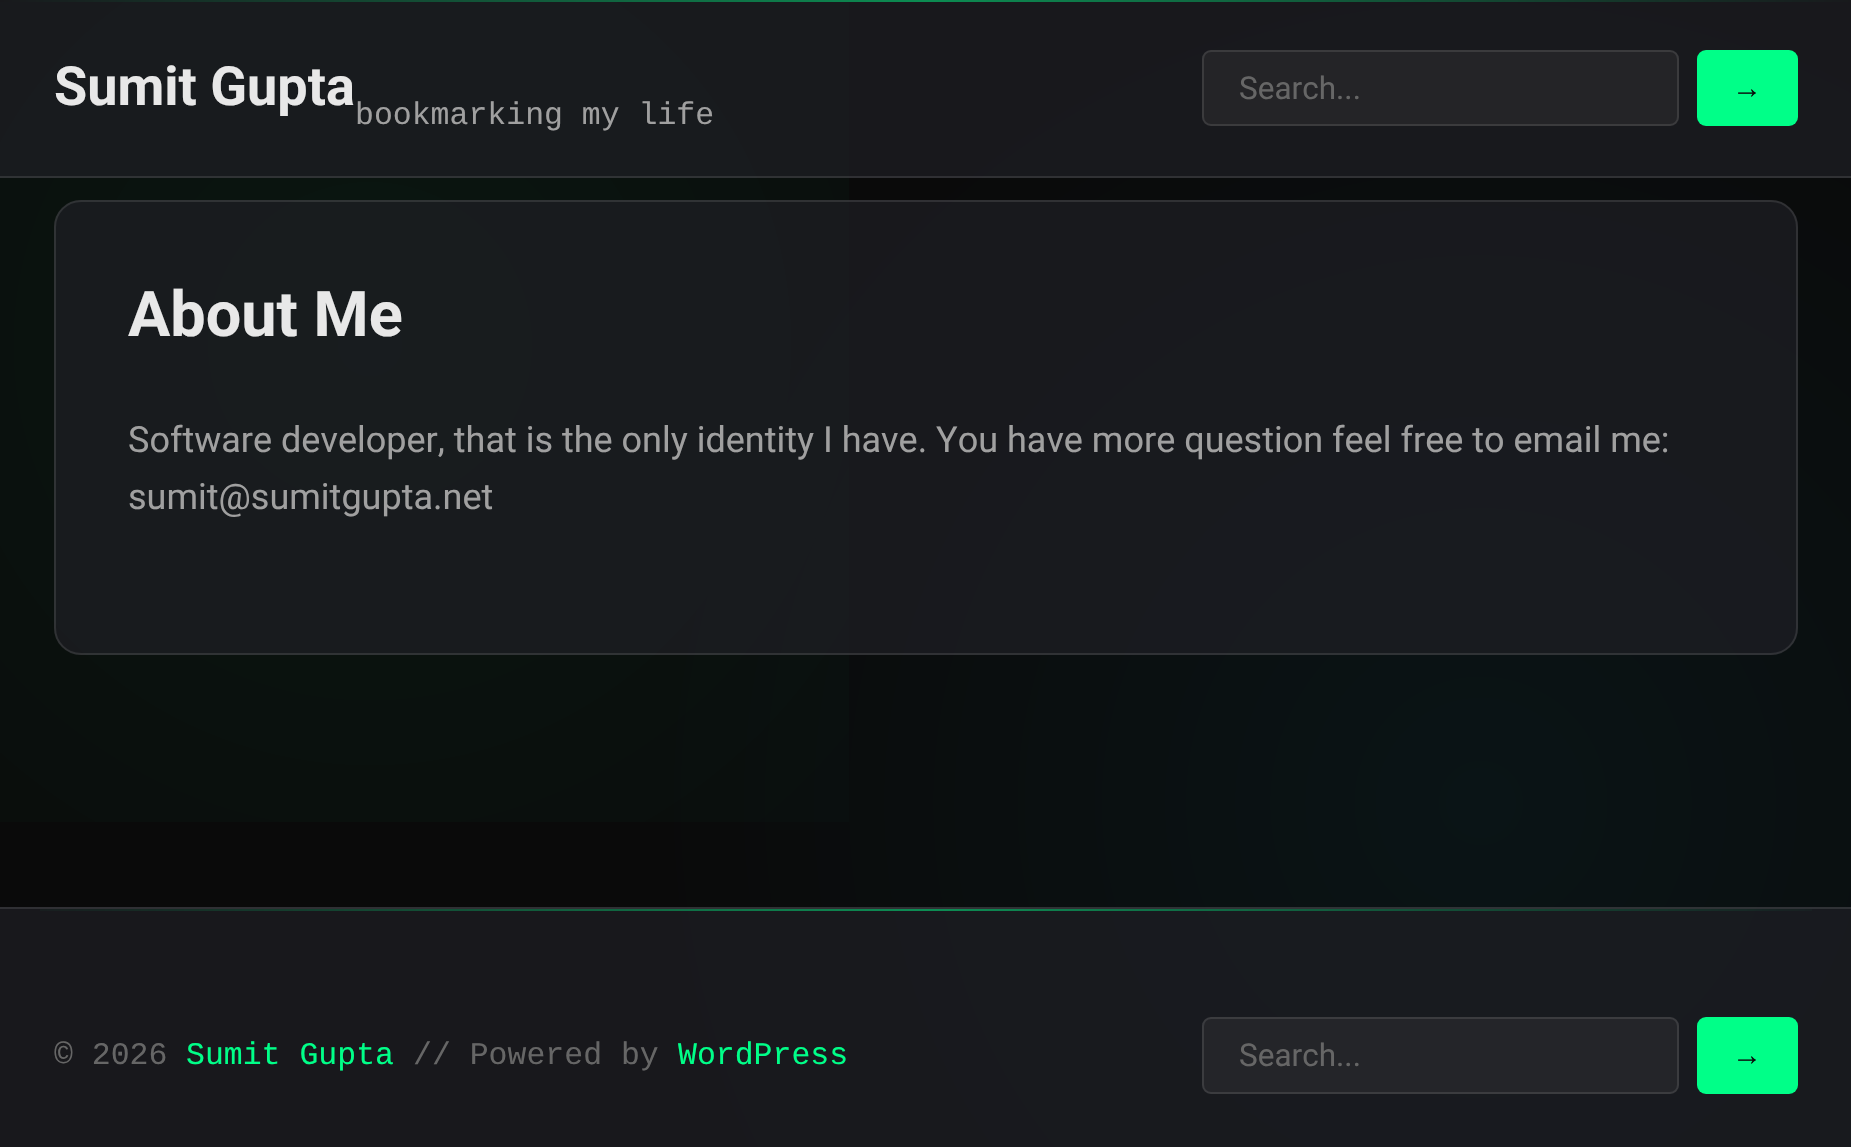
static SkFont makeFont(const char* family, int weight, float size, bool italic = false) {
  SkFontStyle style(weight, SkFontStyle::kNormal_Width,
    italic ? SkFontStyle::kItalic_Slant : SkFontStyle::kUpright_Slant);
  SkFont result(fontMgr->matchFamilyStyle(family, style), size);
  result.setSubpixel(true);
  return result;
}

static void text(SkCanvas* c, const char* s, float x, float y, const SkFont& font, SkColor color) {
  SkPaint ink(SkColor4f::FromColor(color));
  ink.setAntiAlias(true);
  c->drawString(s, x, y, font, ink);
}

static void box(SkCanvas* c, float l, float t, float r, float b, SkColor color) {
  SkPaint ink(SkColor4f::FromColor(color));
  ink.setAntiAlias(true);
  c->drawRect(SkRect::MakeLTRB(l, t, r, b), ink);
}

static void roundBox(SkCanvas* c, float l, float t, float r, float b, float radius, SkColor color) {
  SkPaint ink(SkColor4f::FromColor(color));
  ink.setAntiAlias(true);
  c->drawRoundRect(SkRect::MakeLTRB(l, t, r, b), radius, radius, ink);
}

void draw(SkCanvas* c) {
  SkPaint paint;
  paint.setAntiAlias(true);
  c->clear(0xffffffff);
  {
    const SkColor colors[] = {0xff0a1416, 0xff0a0a0a};
    const float stops[] = {0, 0.5f};
    paint.setShader(SkGradientShader::MakeRadial({1481, 803}, 1685, colors, stops, 2, SkTileMode::kClamp));
    paint.setAlpha(255);
  }
  c->drawRect(SkRect::MakeLTRB(0, 2, 1851, 1147), paint);
  {
    const SkColor colors[] = {0x0d00ff88, 0x0000ff88};
    const float stops[] = {0, 0.5f};
    paint.setShader(SkGradientShader::MakeRadial({370, 344}, 1685, colors, stops, 2, SkTileMode::kClamp));
    paint.setAlpha(255);
  }
  c->drawRect(SkRect::MakeLTRB(0, 2, 849, 822), paint);
  box(c, 0, 2, 1851, 178, 0xb31e1e23);
  box(c, 0, 176, 1851, 178, 0x1affffff);
  {
    const SkColor colors[] = {0xff18191c, 0xff0c8c52, 0xff18191c};
    const float stops[] = {0, 0.5f, 1};
    const SkPoint ends[] = {{0, 1.1f}, {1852, 1.1f}};
    paint.setShader(SkGradientShader::MakeLinear(ends, colors, stops, 3, SkTileMode::kClamp));
    paint.setAlpha(255);
  }
  c->drawRect(SkRect::MakeLTRB(0, 0, 1851, 2), paint);
  SkFont face1 = makeFont("Roboto", 700, 54);
  text(c, "Sumit Gupta", 54, 105, face1, 0xffe8e8e8);
  SkFont face2 = makeFont("Liberation Mono", 400, 31.5f);
  text(c, "bookmarking my life", 355, 124, face2, 0xffa0a0a0);
  roundBox(c, 1202, 50, 1679, 126, 9, 0xff242427);
  paint.setStyle(SkPaint::kStroke_Style);
  paint.setStrokeWidth(2);
  paint.setShader(nullptr);
  paint.setColor(0x1affffff);
  c->drawRoundRect(SkRect::MakeLTRB(1203, 51, 1678, 125), 8, 8, paint);
  SkFont face3 = makeFont("Roboto", 400, 31.5f);
  text(c, "Search...", 1239, 99, face3, 0xff666666);
  roundBox(c, 1697, 50, 1798, 126, 9, 0xff00ff88);
  SkFont face4 = makeFont("Liberation Sans", 700, 30);
  text(c, "→", 1732, 98, face4, 0xff0a0a0a);
  roundBox(c, 54, 200, 1798, 655, 27, 0xb31e1e23);
  c->drawRoundRect(SkRect::MakeLTRB(55, 201, 1797, 654), 26, 26, paint);
  SkFont face5 = makeFont("Roboto", 700, 63);
  text(c, "About Me", 128, 336, face5, 0xffe8e8e8);
  SkFont face6 = makeFont("Roboto", 400, 36);
  text(c, "Software developer, that is the only identity I have. You have more question feel free to email me:", 128, 452, face6, 0xffa0a0a0);
  text(c, "sumit@sumitgupta.net", 128, 509, face6, 0xffa0a0a0);
  box(c, 0, 907, 1851, 1147, 0xb31e1e23);
  box(c, 0, 907, 1851, 909, 0x1affffff);
  paint.setStyle(SkPaint::kFill_Style);
  {
    const SkColor colors[] = {0x0000ff88, 0x8000ff88, 0x0000ff88};
    const float stops[] = {0, 0.5f, 1};
    const SkPoint ends[] = {{0, 910}, {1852, 910}};
    paint.setShader(SkGradientShader::MakeLinear(ends, colors, stops, 3, SkTileMode::kClamp));
    paint.setAlpha(255);
  }
  c->drawRect(SkRect::MakeLTRB(40, 909, 1812, 911), paint);
  text(c, "© 2026", 54, 1064, face2, 0xff666666);
  text(c, "Sumit Gupta", 186, 1064, face2, 0xff00ff88);
  text(c, "// Powered by", 413, 1064, face2, 0xff666666);
  text(c, "WordPress", 678, 1064, face2, 0xff00ff88);
  roundBox(c, 1202, 1017, 1679, 1094, 9, 0xff242529);
  paint.setStyle(SkPaint::kStroke_Style);
  paint.setShader(nullptr);
  paint.setColor(0x1affffff);
  c->drawRoundRect(SkRect::MakeLTRB(1203, 1018, 1678, 1093), 8, 8, paint);
  text(c, "Search...", 1239, 1066, face3, 0xff666666);
  roundBox(c, 1697, 1017, 1798, 1094, 9, 0xff00ff88);
  text(c, "→", 1732, 1065, face4, 0xff0a0a0a);
}
